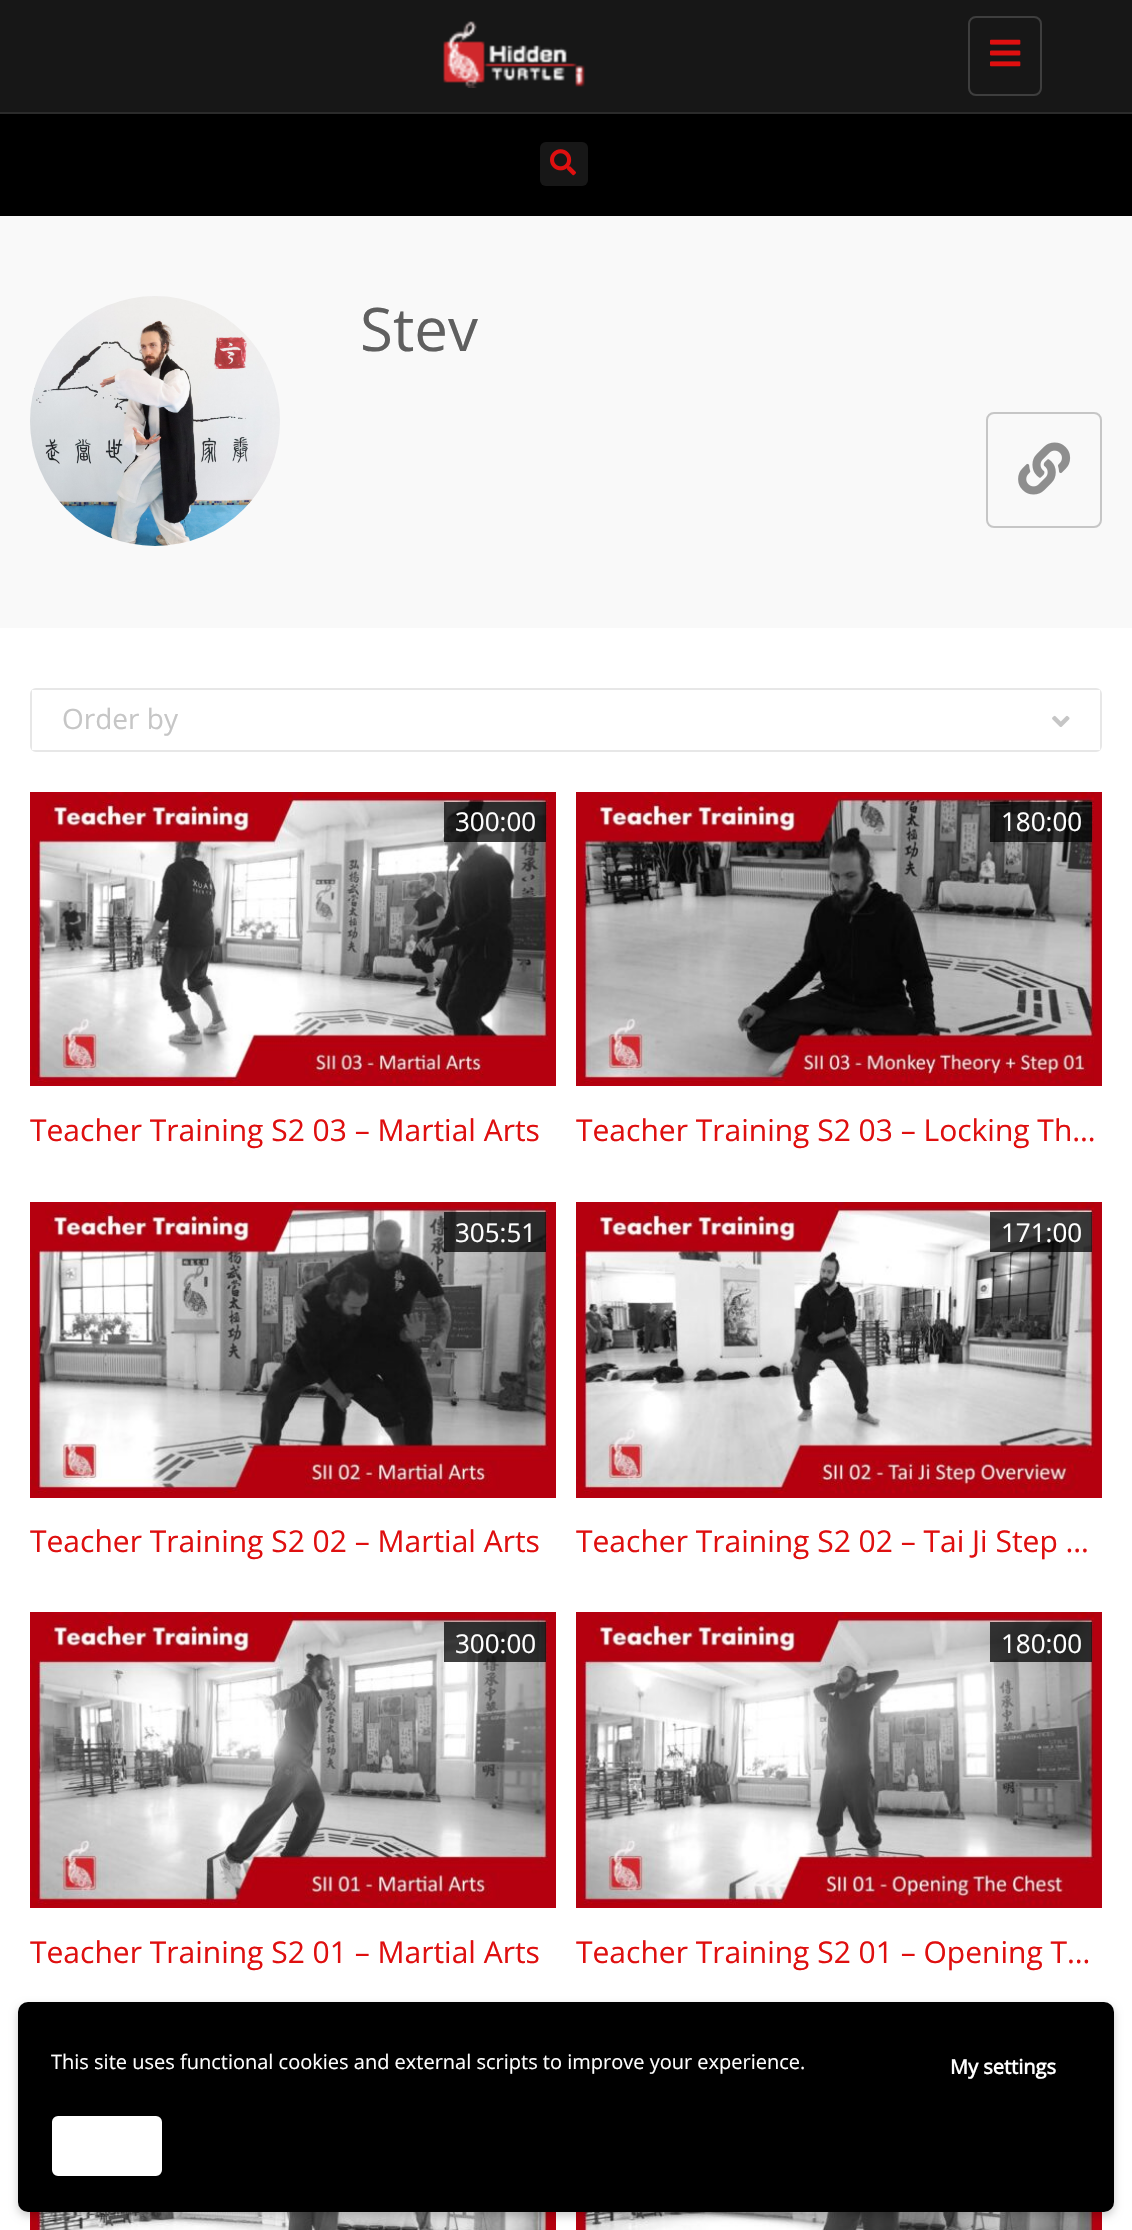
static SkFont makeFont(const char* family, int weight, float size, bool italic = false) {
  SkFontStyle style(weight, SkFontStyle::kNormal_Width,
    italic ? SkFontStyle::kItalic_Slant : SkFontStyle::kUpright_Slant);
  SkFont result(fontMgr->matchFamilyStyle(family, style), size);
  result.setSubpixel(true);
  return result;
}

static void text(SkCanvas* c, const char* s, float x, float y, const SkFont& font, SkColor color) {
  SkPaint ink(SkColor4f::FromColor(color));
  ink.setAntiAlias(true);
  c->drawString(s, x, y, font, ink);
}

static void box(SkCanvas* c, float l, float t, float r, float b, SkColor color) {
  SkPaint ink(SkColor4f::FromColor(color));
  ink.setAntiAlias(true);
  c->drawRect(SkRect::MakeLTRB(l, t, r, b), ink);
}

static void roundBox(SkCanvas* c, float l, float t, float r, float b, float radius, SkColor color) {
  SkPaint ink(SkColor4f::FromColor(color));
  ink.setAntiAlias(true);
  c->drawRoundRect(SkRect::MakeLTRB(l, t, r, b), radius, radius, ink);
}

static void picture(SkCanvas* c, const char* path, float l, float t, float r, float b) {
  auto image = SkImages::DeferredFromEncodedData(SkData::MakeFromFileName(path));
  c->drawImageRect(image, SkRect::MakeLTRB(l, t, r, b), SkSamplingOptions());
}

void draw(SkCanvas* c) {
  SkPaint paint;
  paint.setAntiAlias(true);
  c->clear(0xffffffff);
  box(c, 0, 0, 1132, 112, 0xff171717);
  box(c, 0, 112, 1132, 114, 0xff2b2b2b);
  picture(c, "img_01.png", 443, 21, 585, 88);
  paint.setStyle(SkPaint::kStroke_Style);
  paint.setStrokeWidth(2);
  paint.setColor(0xff3e3e3e);
  c->drawRoundRect(SkRect::MakeLTRB(969, 17, 1041, 95), 7, 7, paint);
  picture(c, "img_02.png", 990, 39, 1021, 67);
  box(c, 0, 114, 1132, 216, 0xff000000);
  roundBox(c, 540, 142, 588, 186, 6, 0xff171717);
  picture(c, "img_03.png", 550, 149, 576, 176);
  box(c, 0, 216, 1132, 628, 0xfff9f9f9);
  picture(c, "img_04.png", 30, 296, 280, 546);
  SkFont face1 = makeFont("Open Sans", 400, 60);
  text(c, "Stev", 360, 351, face1, 0xff5f5f5f);
  paint.setColor(0xffc6c6c6);
  c->drawRoundRect(SkRect::MakeLTRB(987, 413, 1101, 527), 7, 7, paint);
  picture(c, "img_05.png", 1018, 442, 1071, 495);
  paint.setColor(0xffe7e7e7);
  c->drawRoundRect(SkRect::MakeLTRB(31, 689, 1101, 751), 5, 5, paint);
  box(c, 32, 690, 1100, 750, 0xffffffff);
  SkFont face2 = makeFont("Open Sans", 400, 28);
  text(c, "Order by", 62, 729, face2, 0xffc6c6c6);
  picture(c, "img_06.png", 1052, 715, 1070, 727);
  picture(c, "img_07.png", 30, 792, 556, 1086);
  box(c, 444, 802, 546, 842, 0xbf000000);
  SkFont face3 = makeFont("Open Sans", 400, 26);
  text(c, "300:00", 455, 831, face3, 0xffffffff);
  SkFont face4 = makeFont("Open Sans", 400, 30);
  text(c, "Teacher Training S2 03 – Martial Arts", 30, 1141, face4, 0xffdf0f0f);
  picture(c, "img_08.png", 576, 792, 1102, 1086);
  box(c, 990, 802, 1092, 842, 0xbf000000);
  text(c, "180:00", 1001, 831, face3, 0xffffffff);
  text(c, "Teacher Training S2 03 – Locking Th…", 576, 1141, face4, 0xffdf0f0f);
  picture(c, "img_09.png", 30, 1202, 556, 1498);
  box(c, 444, 1212, 546, 1252, 0xbf000000);
  text(c, "305:51", 455, 1242, face3, 0xffffffff);
  text(c, "Teacher Training S2 02 – Martial Arts", 30, 1552, face4, 0xffdf0f0f);
  picture(c, "img_10.png", 576, 1202, 1102, 1498);
  box(c, 990, 1212, 1092, 1252, 0xbf000000);
  text(c, "171:00", 1001, 1242, face3, 0xffffffff);
  text(c, "Teacher Training S2 02 – Tai Ji Step …", 576, 1552, face4, 0xffdf0f0f);
  picture(c, "img_11.png", 30, 1612, 556, 1908);
  box(c, 444, 1622, 546, 1662, 0xbf000000);
  text(c, "300:00", 455, 1653, face3, 0xffffffff);
  text(c, "Teacher Training S2 01 – Martial Arts", 30, 1963, face4, 0xffdf0f0f);
  picture(c, "img_12.png", 576, 1612, 1102, 1908);
  box(c, 990, 1622, 1092, 1662, 0xbf000000);
  text(c, "180:00", 1001, 1653, face3, 0xffffffff);
  text(c, "Teacher Training S2 01 – Opening T…", 576, 1963, face4, 0xffdf0f0f);
  picture(c, "img_13.png", 30, 2212, 556, 2230);
  picture(c, "img_14.png", 576, 2212, 1102, 2230);
  paint.setStyle(SkPaint::kFill_Style);
  paint.setColor(0x33000000);
  paint.setMaskFilter(SkMaskFilter::MakeBlur(kNormal_SkBlurStyle, 4));
  c->drawRoundRect(SkRect::MakeLTRB(18, 2006, 1114, 2216), 10, 10, paint);
  paint.setMaskFilter(nullptr);
  roundBox(c, 18, 2002, 1114, 2212, 10, 0xff000000);
  SkFont face5 = makeFont("Open Sans", 400, 20);
  text(c, "This site uses functional cookies and external scripts to improve your experience.", 51, 2069, face5, 0xffffffff);
  SkFont face6 = makeFont("Open Sans", 700, 20);
  text(c, "My settings", 950, 2074, face6, 0xffffffff);
  paint.setColor(0xffffffff);
  c->drawRoundRect(SkRect::MakeLTRB(53, 2117, 161, 2175), 5, 5, paint);
  paint.setStyle(SkPaint::kStroke_Style);
  c->drawRoundRect(SkRect::MakeLTRB(53, 2117, 161, 2175), 5, 5, paint);
}
